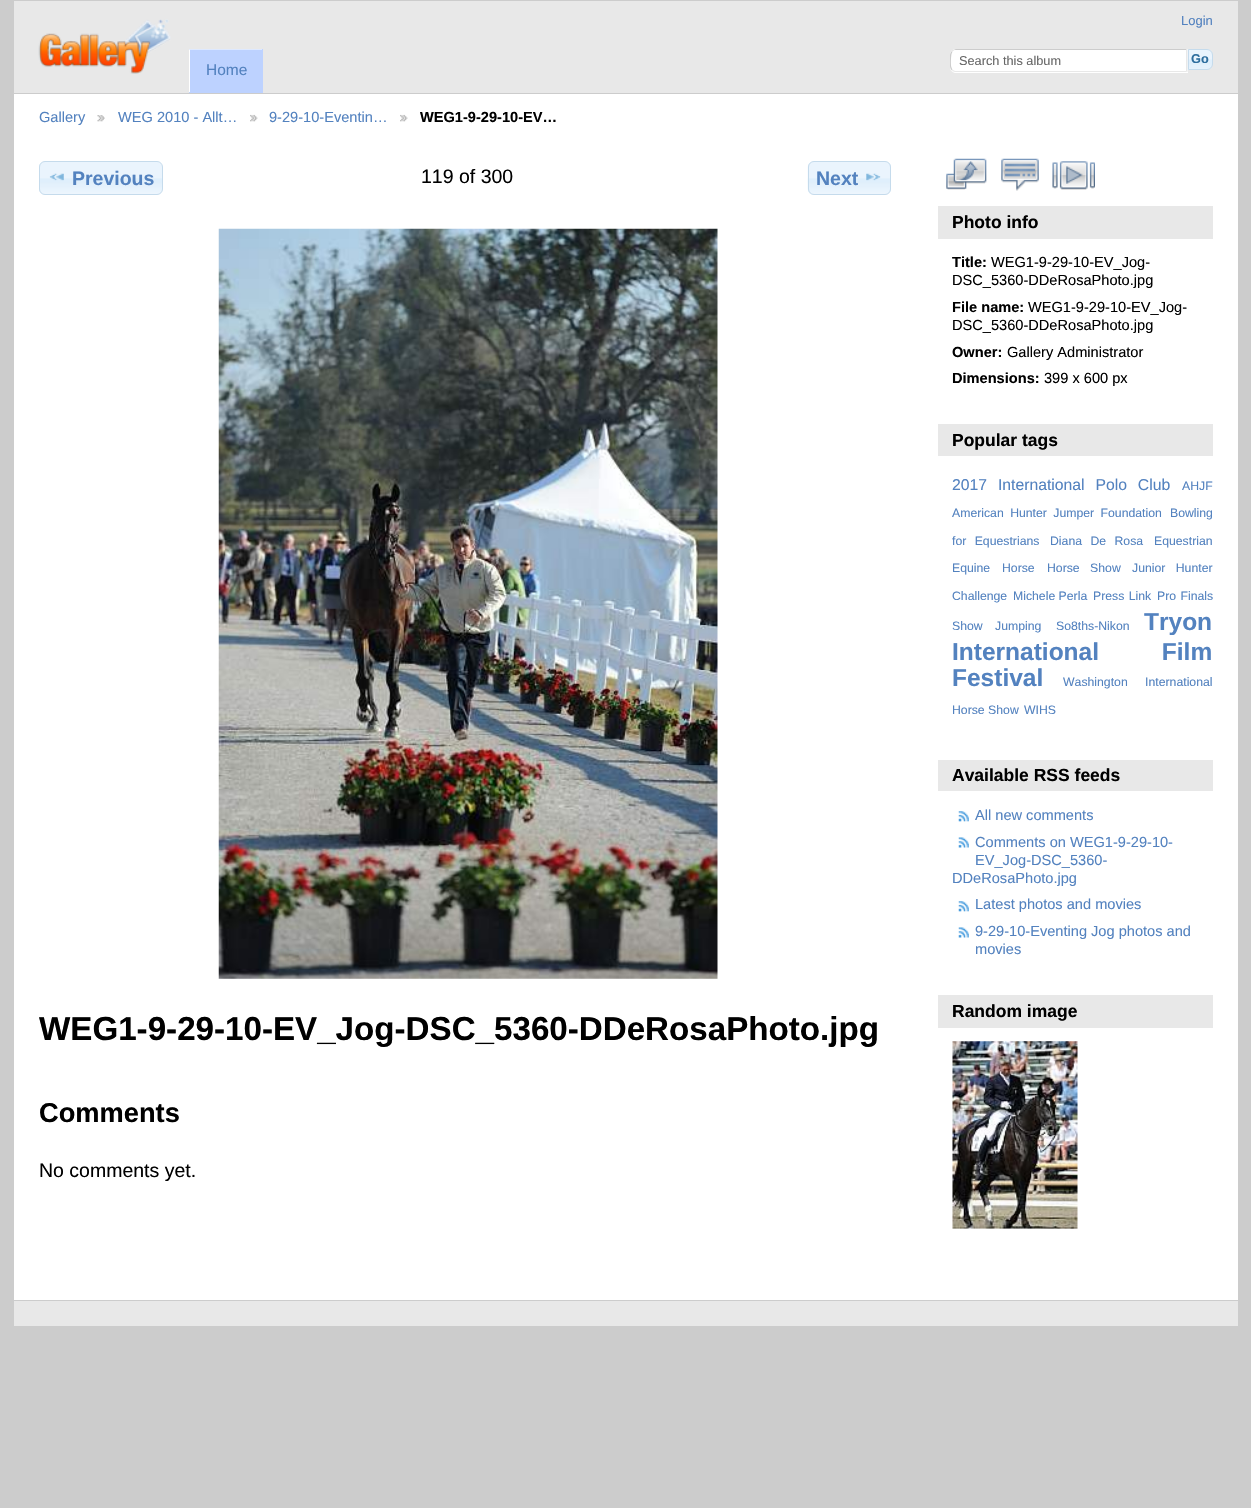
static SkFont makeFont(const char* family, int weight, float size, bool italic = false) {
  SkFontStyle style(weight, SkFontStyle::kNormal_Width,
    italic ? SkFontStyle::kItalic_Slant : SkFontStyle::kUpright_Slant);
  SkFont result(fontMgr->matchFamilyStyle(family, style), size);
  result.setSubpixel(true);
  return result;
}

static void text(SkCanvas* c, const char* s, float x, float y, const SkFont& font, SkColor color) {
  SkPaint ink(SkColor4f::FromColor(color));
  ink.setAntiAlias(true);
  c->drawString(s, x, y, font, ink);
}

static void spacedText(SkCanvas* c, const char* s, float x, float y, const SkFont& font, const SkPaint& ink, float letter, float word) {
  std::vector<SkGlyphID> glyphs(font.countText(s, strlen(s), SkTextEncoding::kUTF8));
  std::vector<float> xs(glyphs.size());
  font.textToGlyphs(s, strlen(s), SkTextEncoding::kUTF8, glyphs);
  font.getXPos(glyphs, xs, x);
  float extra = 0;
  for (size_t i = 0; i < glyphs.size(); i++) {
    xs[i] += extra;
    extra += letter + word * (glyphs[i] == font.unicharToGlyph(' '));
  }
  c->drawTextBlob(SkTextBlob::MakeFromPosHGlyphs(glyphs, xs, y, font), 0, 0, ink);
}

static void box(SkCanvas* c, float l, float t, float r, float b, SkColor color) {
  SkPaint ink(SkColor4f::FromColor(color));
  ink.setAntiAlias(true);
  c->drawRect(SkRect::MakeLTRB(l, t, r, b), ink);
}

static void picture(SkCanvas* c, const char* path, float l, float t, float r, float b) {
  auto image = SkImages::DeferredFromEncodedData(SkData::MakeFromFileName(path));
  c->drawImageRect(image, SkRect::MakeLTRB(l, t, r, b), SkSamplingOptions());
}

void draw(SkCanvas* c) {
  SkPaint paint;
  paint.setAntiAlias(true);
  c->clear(0xffcccccc);
  box(c, 14, 94, 1238, 1300, 0xffffffff);
  box(c, 14, 1, 1238, 93, 0xffe8e8e8);
  picture(c, "img_01.png", 38, 19, 171, 74);
  SkFont face1 = makeFont("Liberation Sans", 400, 13);
  text(c, "Login", 1181, 25, face1, 0xff5382bf);
  paint.setColor(0xffffffff);
  c->drawPath(SkPathBuilder().moveTo(956, 49).lineTo(1188, 49).lineTo(1188, 73).lineTo(956, 73).cubicTo(952.5f, 73, 950, 70.5f, 950, 67).lineTo(950, 55).cubicTo(950, 51.5f, 952.5f, 49, 956, 49).close().detach(), paint);
  paint.setColor(0xffcccccc);
  c->drawPath(SkPathBuilder().moveTo(956, 49).cubicTo(955, 49, 953, 50, 952, 51).lineTo(953, 51).cubicTo(953, 50, 954, 50, 956, 50).lineTo(1186, 50).lineTo(1187, 49).close().detach(), paint);
  paint.setColor(0xffe8e8e8);
  c->drawPath(SkPathBuilder().moveTo(1187.5f, 72).lineTo(1187, 72).lineTo(1186, 71).lineTo(1186, 50).lineTo(1187, 49).lineTo(1187.5f, 49).close().detach(), paint);
  c->drawPath(SkPathBuilder().moveTo(1187, 72).lineTo(955, 72).lineTo(952, 71).lineTo(953, 70).lineTo(955, 71).lineTo(1186, 71).close().detach(), paint);
  paint.setColor(0xffcccccc);
  c->drawPath(SkPathBuilder().moveTo(950, 55).lineTo(950, 66).cubicTo(950, 68, 951, 69.5f, 952, 70.5f).lineTo(952.5f, 70).lineTo(951.5f, 67.5f).cubicTo(950.5f, 65.5f, 951, 56, 951.5f, 54).lineTo(952.5f, 51.5f).lineTo(952, 51).cubicTo(951, 52, 950, 53.5f, 950, 55).close().detach(), paint);
  SkFont face2 = makeFont("Liberation Sans", 400, 12.75f);
  text(c, "Search this album", 959, 65, face2, 0xff666666);
  picture(c, "img_02.png", 1187, 49, 1212, 70);
  paint.setStyle(SkPaint::kStroke_Style);
  paint.setStrokeWidth(1);
  paint.setColor(0xffc5dbec);
  c->drawPath(SkPathBuilder().moveTo(1188.5f, 49.5f).lineTo(1207, 49.5f).cubicTo(1210, 49.5f, 1212.5f, 52, 1212.5f, 55).lineTo(1212.5f, 64).cubicTo(1212.5f, 67, 1210, 69.5f, 1207, 69.5f).lineTo(1188.5f, 69.5f).close().detach(), paint);
  SkFont face3 = makeFont("Liberation Sans", 700, 12.75f);
  text(c, "Go", 1191, 63, face3, 0xff2e6e9e);
  box(c, 189, 49, 263, 93, 0xffbdd2ff);
  paint.setStyle(SkPaint::kFill_Style);
  paint.setColor(0xffdee9ff);
  c->drawPath(SkPathBuilder().moveTo(189, 49).lineTo(262, 49).lineTo(262, 50).lineTo(190, 50).close().detach(), paint);
  paint.setColor(0xffffffff);
  c->drawPath(SkPathBuilder().moveTo(189, 92).lineTo(189, 49).lineTo(190, 50).lineTo(190, 92).close().detach(), paint);
  SkFont face4 = makeFont("Liberation Sans", 400, 15.5f);
  text(c, "Home", 206, 75, face4, 0xff5382bf);
  SkFont face5 = makeFont("Liberation Sans", 400, 14.6f);
  text(c, "Gallery", 39, 122, face5, 0xff5382bf);
  picture(c, "img_03.png", 97, 115, 105, 122);
  text(c, "WEG 2010 - Allt…", 118, 122, face5, 0xff5382bf);
  picture(c, "img_04.png", 250, 114, 258, 122);
  text(c, "9-29-10-Eventin…", 269, 122, face5, 0xff5382bf);
  picture(c, "img_05.png", 400, 114, 408, 122);
  SkFont face6 = makeFont("Liberation Sans", 700, 14.6f);
  text(c, "WEG1-9-29-10-EV…", 420, 122, face6, 0xff000000);
  picture(c, "img_06.png", 39, 161, 162, 195);
  paint.setStyle(SkPaint::kStroke_Style);
  paint.setColor(0xffc5dbec);
  c->drawRoundRect(SkRect::MakeLTRB(39.5f, 161.5f, 162.5f, 194.5f), 5.5f, 5.5f, paint);
  picture(c, "img_07.png", 49, 173, 64, 181);
  SkFont face7 = makeFont("Liberation Sans", 700, 19.5f);
  text(c, "Previous", 72, 185, face7, 0xff5382bf);
  SkFont face8 = makeFont("Liberation Sans", 400, 19.5f);
  text(c, "119 of 300", 421, 183, face8, 0xff000000);
  picture(c, "img_08.png", 807, 161, 891, 195);
  c->drawRoundRect(SkRect::MakeLTRB(808.5f, 161.5f, 890.5f, 194.5f), 5.5f, 5.5f, paint);
  text(c, "Next", 816, 185, face7, 0xff5382bf);
  picture(c, "img_09.png", 866, 173, 881, 181);
  picture(c, "img_10.png", 218, 228, 718, 979);
  SkFont face9 = makeFont("Liberation Sans", 700, 33.15f);
  text(c, "WEG1-9-29-10-EV_Jog-DSC_5360-DDeRosaPhoto.jpg", 39, 1040, face9, 0xff000000);
  SkFont face10 = makeFont("Liberation Sans", 700, 27.25f);
  text(c, "Comments", 39, 1122, face10, 0xff000000);
  text(c, "No comments yet.", 39, 1177, face8, 0xff000000);
  picture(c, "img_11.png", 946, 158, 987, 190);
  picture(c, "img_12.png", 1001, 158, 1039, 191);
  picture(c, "img_13.png", 1052, 161, 1095, 190);
  box(c, 938, 206, 1213, 239, 0xffe8e8e8);
  SkFont face11 = makeFont("Liberation Sans", 700, 17.5f);
  text(c, "Photo info", 952, 228, face11, 0xff000000);
  text(c, "Title:", 952, 267, face6, 0xff000000);
  text(c, "WEG1-9-29-10-EV_Jog-", 991, 267, face5, 0xff000000);
  text(c, "DSC_5360-DDeRosaPhoto.jpg", 952, 285, face5, 0xff000000);
  text(c, "File name:", 952, 312, face6, 0xff000000);
  text(c, "WEG1-9-29-10-EV_Jog-", 1028, 312, face5, 0xff000000);
  text(c, "DSC_5360-DDeRosaPhoto.jpg", 952, 330, face5, 0xff000000);
  text(c, "Owner:", 952, 357, face6, 0xff000000);
  text(c, "Gallery Administrator", 1007, 357, face5, 0xff000000);
  text(c, "Dimensions:", 952, 383, face6, 0xff000000);
  text(c, "399 x 600 px", 1044, 383, face5, 0xff000000);
  box(c, 938, 424, 1213, 456, 0xffe8e8e8);
  text(c, "Popular tags", 952, 446, face11, 0xff000000);
  SkFont face12 = makeFont("Liberation Sans", 400, 15.75f);
  paint.setStyle(SkPaint::kFill_Style);
  paint.setColor(0xff5382bf);
  spacedText(c, "2017 International Polo Club", 952, 490, face12, paint, 0, 6.5f);
  SkFont face13 = makeFont("Liberation Sans", 400, 12.25f);
  text(c, "AHJF", 1182, 490, face13, 0xff5382bf);
  spacedText(c, "American Hunter Jumper Foundation", 952, 517, face13, paint, 0, 3);
  text(c, "Bowling", 1170, 517, face13, 0xff5382bf);
  spacedText(c, "for Equestrians", 952, 545, face13, paint, 0, 5);
  spacedText(c, "Diana De Rosa", 1050, 545, face13, paint, 0, 5);
  text(c, "Equestrian", 1154, 545, face13, 0xff5382bf);
  text(c, "Equine", 952, 572, face13, 0xff5382bf);
  text(c, "Horse", 1002, 572, face13, 0xff5382bf);
  spacedText(c, "Horse Show", 1047, 572, face13, paint, 0, 7);
  spacedText(c, "Junior Hunter", 1132, 572, face13, paint, 0, 7);
  text(c, "Challenge", 952, 600, face13, 0xff5382bf);
  text(c, "Michele Perla", 1013, 600, face13, 0xff5382bf);
  spacedText(c, "Press Link", 1093, 600, face13, paint, 0, 1);
  spacedText(c, "Pro Finals", 1157, 600, face13, paint, 0, 1);
  spacedText(c, "Show Jumping", 952, 630, face13, paint, 0, 9);
  text(c, "So8ths-Nikon", 1056, 630, face13, 0xff5382bf);
  SkFont face14 = makeFont("Liberation Sans", 700, 24.5f);
  text(c, "Tryon", 1144, 630, face14, 0xff5382bf);
  spacedText(c, "International Film", 952, 660, face14, paint, 0, 56);
  text(c, "Festival", 952, 686, face14, 0xff5382bf);
  spacedText(c, "Washington International", 1063, 686, face13, paint, 0, 14);
  text(c, "Horse Show", 952, 714, face13, 0xff5382bf);
  text(c, "WIHS", 1024, 714, face13, 0xff5382bf);
  box(c, 938, 760, 1213, 791, 0xffe8e8e8);
  text(c, "Available RSS feeds", 952, 781, face11, 0xff000000);
  picture(c, "img_14.png", 958, 811, 969, 822);
  text(c, "All new comments", 975, 820, face5, 0xff5382bf);
  picture(c, "img_15.png", 958, 837, 969, 848);
  text(c, "Comments on WEG1-9-29-10-", 975, 847, face5, 0xff5382bf);
  text(c, "EV_Jog-DSC_5360-", 975, 865, face5, 0xff5382bf);
  text(c, "DDeRosaPhoto.jpg", 952, 883, face5, 0xff5382bf);
  picture(c, "img_14.png", 958, 901, 969, 912);
  text(c, "Latest photos and movies", 975, 909, face5, 0xff5382bf);
  picture(c, "img_15.png", 958, 927, 969, 938);
  text(c, "9-29-10-Eventing Jog photos and", 975, 936, face5, 0xff5382bf);
  text(c, "movies", 975, 954, face5, 0xff5382bf);
  box(c, 938, 995, 1213, 1028, 0xffe8e8e8);
  text(c, "Random image", 952, 1017, face11, 0xff000000);
  picture(c, "img_16.png", 952, 1041, 1078, 1229);
  box(c, 14, 1301, 1238, 1326, 0xffe8e8e8);
}
